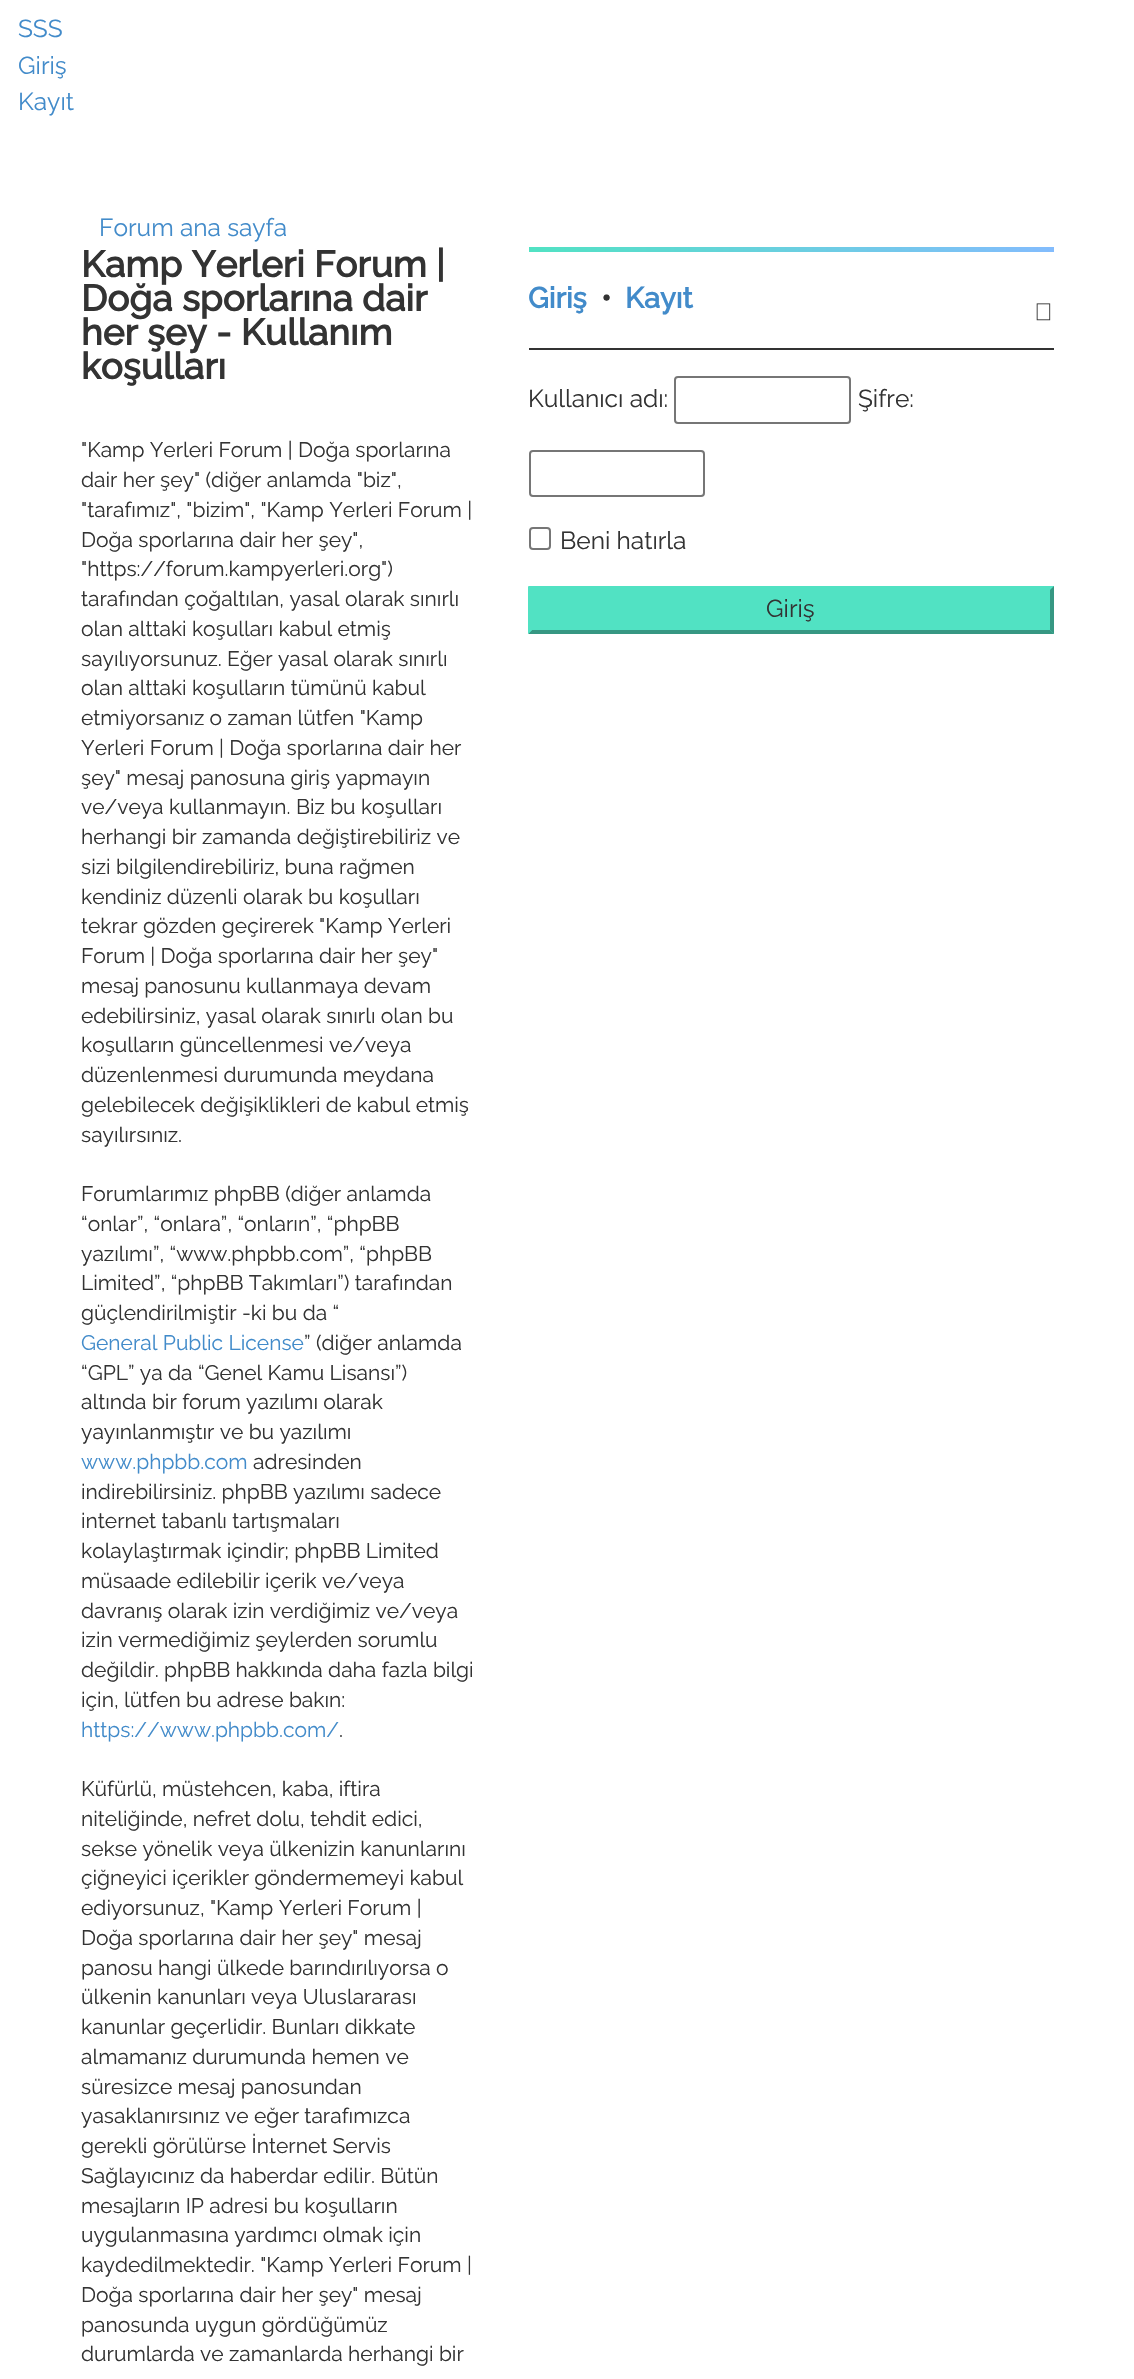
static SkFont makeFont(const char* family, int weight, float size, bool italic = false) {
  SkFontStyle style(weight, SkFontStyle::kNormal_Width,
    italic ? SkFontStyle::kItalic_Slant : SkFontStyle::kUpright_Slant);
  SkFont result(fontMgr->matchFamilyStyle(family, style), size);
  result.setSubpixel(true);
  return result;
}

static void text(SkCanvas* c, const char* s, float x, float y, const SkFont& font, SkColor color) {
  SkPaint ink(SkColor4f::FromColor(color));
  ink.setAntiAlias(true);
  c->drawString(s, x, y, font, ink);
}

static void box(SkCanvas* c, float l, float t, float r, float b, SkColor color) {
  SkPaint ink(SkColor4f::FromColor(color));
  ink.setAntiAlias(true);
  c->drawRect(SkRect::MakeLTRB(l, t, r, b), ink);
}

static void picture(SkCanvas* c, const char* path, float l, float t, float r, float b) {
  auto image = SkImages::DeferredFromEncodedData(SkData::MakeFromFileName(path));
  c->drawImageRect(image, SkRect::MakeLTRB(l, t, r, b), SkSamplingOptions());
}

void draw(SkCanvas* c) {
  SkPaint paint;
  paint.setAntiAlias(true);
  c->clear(0xffffffff);
  SkFont face1 = makeFont("Raleway", 400, 24.5f);
  text(c, "SSS", 18, 37, face1, 0xff428bca);
  text(c, "Giriş", 18, 74, face1, 0xff428bca);
  text(c, "Kayıt", 18, 110, face1, 0xff428bca);
  text(c, "Forum ana sayfa", 99, 236, face1, 0xff428bca);
  SkFont face2 = makeFont("Raleway", 700, 36.75f);
  text(c, "Kamp Yerleri Forum |", 81, 277, face2, 0xff333333);
  text(c, "Doğa sporlarına dair", 81, 311, face2, 0xff333333);
  text(c, "her şey - Kullanım", 81, 345, face2, 0xff333333);
  text(c, "koşulları", 81, 379, face2, 0xff333333);
  SkFont face3 = makeFont("Raleway", 400, 21);
  text(c, "\"Kamp Yerleri Forum | Doğa sporlarına", 81, 457, face3, 0xff333333);
  text(c, "dair her şey\" (diğer anlamda \"biz\",", 81, 487, face3, 0xff333333);
  text(c, "\"tarafımız\", \"bizim\", \"Kamp Yerleri Forum |", 81, 517, face3, 0xff333333);
  text(c, "Doğa sporlarına dair her şey\",", 81, 547, face3, 0xff333333);
  text(c, "\"https://forum.kampyerleri.org\")", 81, 576, face3, 0xff333333);
  text(c, "tarafından çoğaltılan, yasal olarak sınırlı", 81, 606, face3, 0xff333333);
  text(c, "olan alttaki koşulları kabul etmiş", 81, 636, face3, 0xff333333);
  text(c, "sayılıyorsunuz. Eğer yasal olarak sınırlı", 81, 666, face3, 0xff333333);
  text(c, "olan alttaki koşulların tümünü kabul", 81, 695, face3, 0xff333333);
  text(c, "etmiyorsanız o zaman lütfen \"Kamp", 81, 725, face3, 0xff333333);
  text(c, "Yerleri Forum | Doğa sporlarına dair her", 81, 755, face3, 0xff333333);
  text(c, "şey\" mesaj panosuna giriş yapmayın", 81, 785, face3, 0xff333333);
  text(c, "ve/veya kullanmayın. Biz bu koşulları", 81, 814, face3, 0xff333333);
  text(c, "herhangi bir zamanda değiştirebiliriz ve", 81, 844, face3, 0xff333333);
  text(c, "sizi bilgilendirebiliriz, buna rağmen", 81, 874, face3, 0xff333333);
  text(c, "kendiniz düzenli olarak bu koşulları", 81, 904, face3, 0xff333333);
  text(c, "tekrar gözden geçirerek \"Kamp Yerleri", 81, 933, face3, 0xff333333);
  text(c, "Forum | Doğa sporlarına dair her şey\"", 81, 963, face3, 0xff333333);
  text(c, "mesaj panosunu kullanmaya devam", 81, 993, face3, 0xff333333);
  text(c, "edebilirsiniz, yasal olarak sınırlı olan bu", 81, 1023, face3, 0xff333333);
  text(c, "koşulların güncellenmesi ve/veya", 81, 1052, face3, 0xff333333);
  text(c, "düzenlenmesi durumunda meydana", 81, 1082, face3, 0xff333333);
  text(c, "gelebilecek değişiklikleri de kabul etmiş", 81, 1112, face3, 0xff333333);
  text(c, "sayılırsınız.", 81, 1142, face3, 0xff333333);
  text(c, "Forumlarımız phpBB (diğer anlamda", 81, 1201, face3, 0xff333333);
  text(c, "“onlar”, “onlara”, “onların”, “phpBB", 81, 1231, face3, 0xff333333);
  text(c, "yazılımı”, “www.phpbb.com”, “phpBB", 81, 1261, face3, 0xff333333);
  text(c, "Limited”, “phpBB Takımları”) tarafından", 81, 1290, face3, 0xff333333);
  text(c, "güçlendirilmiştir -ki bu da “", 81, 1320, face3, 0xff333333);
  text(c, "General Public License", 81, 1350, face3, 0xff428bca);
  text(c, "” (diğer anlamda", 304, 1350, face3, 0xff333333);
  text(c, "“GPL” ya da “Genel Kamu Lisansı”)", 81, 1380, face3, 0xff333333);
  text(c, "altında bir forum yazılımı olarak", 81, 1409, face3, 0xff333333);
  text(c, "yayınlanmıştır ve bu yazılımı", 81, 1439, face3, 0xff333333);
  text(c, "www.phpbb.com", 81, 1469, face3, 0xff428bca);
  text(c, "adresinden", 253, 1469, face3, 0xff333333);
  text(c, "indirebilirsiniz. phpBB yazılımı sadece", 81, 1499, face3, 0xff333333);
  text(c, "internet tabanlı tartışmaları", 81, 1528, face3, 0xff333333);
  text(c, "kolaylaştırmak içindir; phpBB Limited", 81, 1558, face3, 0xff333333);
  text(c, "müsaade edilebilir içerik ve/veya", 81, 1588, face3, 0xff333333);
  text(c, "davranış olarak izin verdiğimiz ve/veya", 81, 1618, face3, 0xff333333);
  text(c, "izin vermediğimiz şeylerden sorumlu", 81, 1647, face3, 0xff333333);
  text(c, "değildir. phpBB hakkında daha fazla bilgi", 81, 1677, face3, 0xff333333);
  text(c, "için, lütfen bu adrese bakın:", 81, 1707, face3, 0xff333333);
  text(c, "https://www.phpbb.com/", 81, 1737, face3, 0xff428bca);
  text(c, ".", 339, 1737, face3, 0xff333333);
  text(c, "Küfürlü, müstehcen, kaba, iftira", 81, 1796, face3, 0xff333333);
  text(c, "niteliğinde, nefret dolu, tehdit edici,", 81, 1826, face3, 0xff333333);
  text(c, "sekse yönelik veya ülkenizin kanunlarını", 81, 1856, face3, 0xff333333);
  text(c, "çiğneyici içerikler göndermemeyi kabul", 81, 1885, face3, 0xff333333);
  text(c, "ediyorsunuz, \"Kamp Yerleri Forum |", 81, 1915, face3, 0xff333333);
  text(c, "Doğa sporlarına dair her şey\" mesaj", 81, 1945, face3, 0xff333333);
  text(c, "panosu hangi ülkede barındırılıyorsa o", 81, 1975, face3, 0xff333333);
  text(c, "ülkenin kanunları veya Uluslararası", 81, 2004, face3, 0xff333333);
  text(c, "kanunlar geçerlidir. Bunları dikkate", 81, 2034, face3, 0xff333333);
  text(c, "almamanız durumunda hemen ve", 81, 2064, face3, 0xff333333);
  text(c, "süresizce mesaj panosundan", 81, 2094, face3, 0xff333333);
  text(c, "yasaklanırsınız ve eğer tarafımızca", 81, 2123, face3, 0xff333333);
  text(c, "gerekli görülürse İnternet Servis", 81, 2153, face3, 0xff333333);
  text(c, "Sağlayıcınız da haberdar edilir. Bütün", 81, 2183, face3, 0xff333333);
  text(c, "mesajların IP adresi bu koşulların", 81, 2213, face3, 0xff333333);
  text(c, "uygulanmasına yardımcı olmak için", 81, 2242, face3, 0xff333333);
  text(c, "kaydedilmektedir. \"Kamp Yerleri Forum |", 81, 2272, face3, 0xff333333);
  text(c, "Doğa sporlarına dair her şey\" mesaj", 81, 2302, face3, 0xff333333);
  text(c, "panosunda uygun gördüğümüz", 81, 2332, face3, 0xff333333);
  text(c, "durumlarda ve zamanlarda herhangi bir", 81, 2361, face3, 0xff333333);
  {
    const SkColor colors[] = {0xff51e2c3, 0xff83bcfd};
    const float stops[] = {0, 1};
    const SkPoint ends[] = {{529, 249}, {1054, 249}};
    paint.setShader(SkGradientShader::MakeLinear(ends, colors, stops, 2, SkTileMode::kClamp));
    paint.setAlpha(255);
  }
  c->drawRect(SkRect::MakeLTRB(529, 247, 1054, 252), paint);
  SkFont face4 = makeFont("Raleway", 700, 29);
  text(c, "Giriş", 528, 308, face4, 0xff428bca);
  text(c, "•", 601, 308, face4, 0xff333333);
  text(c, "Kayıt", 625, 308, face4, 0xff428bca);
  picture(c, "img_01.png", 1036, 303, 1051, 321);
  box(c, 529, 348, 1054, 350, 0xff333333);
  text(c, "Kullanıcı adı:", 528, 407, face1, 0xff333333);
  paint.setStyle(SkPaint::kStroke_Style);
  paint.setStrokeWidth(2);
  paint.setShader(nullptr);
  paint.setColor(0xff767676);
  c->drawRoundRect(SkRect::MakeLTRB(675, 377, 850, 423), 3, 3, paint);
  text(c, "Şifre:", 858, 407, face1, 0xff333333);
  c->drawRoundRect(SkRect::MakeLTRB(530, 451, 704, 496), 3, 3, paint);
  c->drawRoundRect(SkRect::MakeLTRB(530, 528, 550, 549), 3, 3, paint);
  text(c, "Beni hatırla", 560, 549, face1, 0xff333333);
  box(c, 529, 586, 1054, 634, 0xff51e2c3);
  paint.setStyle(SkPaint::kFill_Style);
  paint.setColor(0xff51e2c3);
  c->drawPath(SkPathBuilder().moveTo(528, 586).lineTo(1054, 586).lineTo(1050, 590).lineTo(532, 590).close().detach(), paint);
  paint.setColor(0xff369782);
  c->drawPath(SkPathBuilder().moveTo(1054, 586).lineTo(1054, 634).lineTo(1050, 630).lineTo(1050, 590).close().detach(), paint);
  c->drawPath(SkPathBuilder().moveTo(1054, 634).lineTo(528, 634).lineTo(532, 630).lineTo(1050, 630).close().detach(), paint);
  paint.setColor(0xff51e2c3);
  c->drawPath(SkPathBuilder().moveTo(528, 634).lineTo(528, 586).lineTo(532, 590).lineTo(532, 630).close().detach(), paint);
  text(c, "Giriş", 766, 617, face1, 0xff333333);
}
